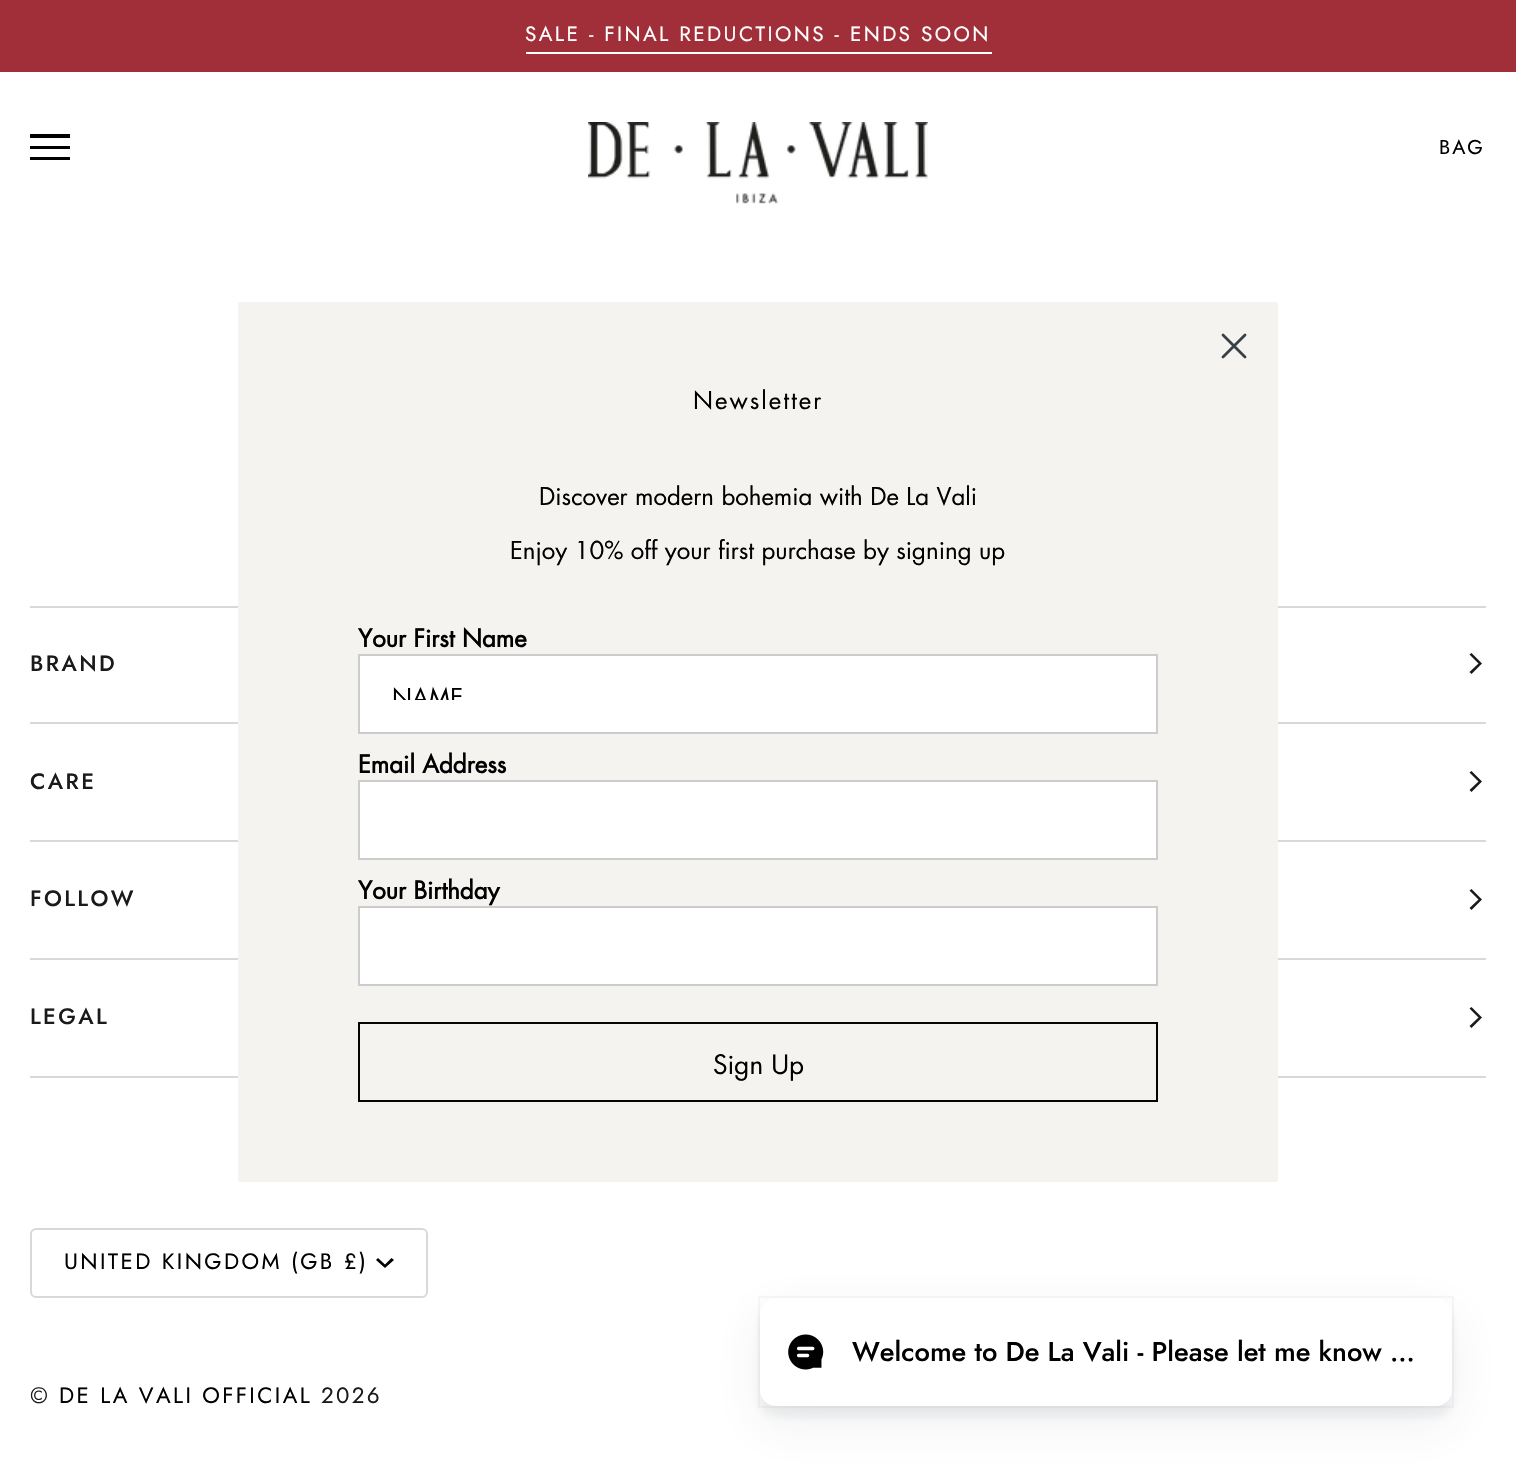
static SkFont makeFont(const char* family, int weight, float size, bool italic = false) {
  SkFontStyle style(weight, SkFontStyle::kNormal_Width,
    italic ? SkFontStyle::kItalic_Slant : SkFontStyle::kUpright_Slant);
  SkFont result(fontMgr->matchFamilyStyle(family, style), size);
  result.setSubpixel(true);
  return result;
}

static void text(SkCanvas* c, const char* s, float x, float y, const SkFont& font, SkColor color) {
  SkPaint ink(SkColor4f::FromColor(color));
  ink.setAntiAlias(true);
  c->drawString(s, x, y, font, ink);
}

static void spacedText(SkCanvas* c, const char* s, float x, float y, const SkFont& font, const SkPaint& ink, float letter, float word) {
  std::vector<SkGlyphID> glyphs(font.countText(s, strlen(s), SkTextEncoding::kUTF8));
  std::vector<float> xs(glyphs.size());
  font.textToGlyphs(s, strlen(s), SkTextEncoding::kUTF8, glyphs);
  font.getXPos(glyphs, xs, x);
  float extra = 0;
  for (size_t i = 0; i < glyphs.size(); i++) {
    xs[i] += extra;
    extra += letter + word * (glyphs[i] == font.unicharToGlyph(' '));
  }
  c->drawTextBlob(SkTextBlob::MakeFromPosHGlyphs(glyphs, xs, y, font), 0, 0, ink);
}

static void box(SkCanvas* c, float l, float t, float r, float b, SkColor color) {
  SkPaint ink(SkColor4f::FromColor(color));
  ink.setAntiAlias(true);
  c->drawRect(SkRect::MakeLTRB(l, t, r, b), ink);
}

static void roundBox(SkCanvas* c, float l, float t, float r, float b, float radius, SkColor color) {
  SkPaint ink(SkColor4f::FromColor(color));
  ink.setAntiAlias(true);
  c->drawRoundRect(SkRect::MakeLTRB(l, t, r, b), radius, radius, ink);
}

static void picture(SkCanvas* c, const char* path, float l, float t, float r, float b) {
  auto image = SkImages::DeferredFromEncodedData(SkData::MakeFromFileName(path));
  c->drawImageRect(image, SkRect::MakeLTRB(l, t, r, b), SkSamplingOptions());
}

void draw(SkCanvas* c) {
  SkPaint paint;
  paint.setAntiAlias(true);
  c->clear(0xffffffff);
  box(c, 0, 0, 1516, 72, 0xffa02f3a);
  SkFont face1 = makeFont("Jost", 400, 20.7f);
  paint.setColor(0xffffffff);
  spacedText(c, "SALE - FINAL REDUCTIONS - ENDS SOON", 525, 41, face1, paint, 2.4f, 0);
  box(c, 526, 52, 992, 54, 0xffffffff);
  paint.setColor(0xff000000);
  c->drawPath(SkPathBuilder().moveTo(30, 134).lineTo(70, 134).lineTo(70, 138).lineTo(30, 138).close().moveTo(30, 146).lineTo(70, 146).lineTo(70, 149).lineTo(30, 149).close().moveTo(30, 157).lineTo(70, 157).lineTo(70, 160).lineTo(30, 160).close().detach(), paint);
  picture(c, "img_01.png", 588, 122, 928, 204);
  SkFont face2 = makeFont("Jost", 400, 20);
  spacedText(c, "BAG", 1439, 154, face2, paint, 2, 0);
  box(c, 30, 606, 1486, 608, 0xffd9d9d9);
  box(c, 30, 722, 1486, 724, 0xffd9d9d9);
  SkFont face3 = makeFont("Jost", 500, 22.25f);
  paint.setColor(0xff1a1a1a);
  spacedText(c, "BRAND", 30, 671, face3, paint, 2.4f, 0);
  c->drawPath(SkPathBuilder(SkPathFillType::kEvenOdd).moveTo(1478.5f, 663.5f).lineTo(1469.5f, 654.5f).lineTo(1471.5f, 653).lineTo(1482, 663.5f).lineTo(1471.5f, 674).lineTo(1469.5f, 672).close().detach(), paint);
  box(c, 30, 840, 1486, 842, 0xffd9d9d9);
  spacedText(c, "CARE", 30, 789, face3, paint, 2.4f, 0);
  c->drawPath(SkPathBuilder(SkPathFillType::kEvenOdd).moveTo(1478.5f, 781.5f).lineTo(1469.5f, 772.5f).lineTo(1471.5f, 771).lineTo(1482, 781.5f).lineTo(1471.5f, 792).lineTo(1469.5f, 790).close().detach(), paint);
  box(c, 30, 958, 1486, 960, 0xffd9d9d9);
  spacedText(c, "FOLLOW", 30, 906, face3, paint, 2.4f, 0);
  c->drawPath(SkPathBuilder(SkPathFillType::kEvenOdd).moveTo(1478.5f, 899.5f).lineTo(1469.5f, 890.5f).lineTo(1471.5f, 889).lineTo(1482, 899.5f).lineTo(1471.5f, 910).lineTo(1469.5f, 908).close().detach(), paint);
  box(c, 30, 1076, 1486, 1078, 0xffd9d9d9);
  spacedText(c, "LEGAL", 30, 1024, face3, paint, 2.4f, 0);
  c->drawPath(SkPathBuilder(SkPathFillType::kEvenOdd).moveTo(1478.5f, 1017.5f).lineTo(1469.5f, 1008.5f).lineTo(1471.5f, 1007).lineTo(1482, 1017.5f).lineTo(1471.5f, 1028).lineTo(1469.5f, 1026).close().detach(), paint);
  paint.setStyle(SkPaint::kStroke_Style);
  paint.setStrokeWidth(2);
  paint.setColor(0xffd9d9d9);
  c->drawRoundRect(SkRect::MakeLTRB(31, 1229, 427, 1297), 5, 5, paint);
  SkFont face4 = makeFont("Jost", 400, 22.25f);
  paint.setStyle(SkPaint::kFill_Style);
  paint.setColor(0xff000000);
  spacedText(c, "UNITED KINGDOM (GB £)", 64, 1269, face4, paint, 2.4f, 0);
  c->drawPath(SkPathBuilder(SkPathFillType::kEvenOdd).moveTo(376, 1260).lineTo(378, 1258).lineTo(385, 1264.5f).lineTo(391.5f, 1258).lineTo(394, 1260).lineTo(385, 1268).close().detach(), paint);
  paint.setColor(0xff1a1a1a);
  spacedText(c, "©", 30, 1403, face4, paint, 2.4f, 0);
  paint.setColor(0xff000000);
  spacedText(c, "DE LA VALI OFFICIAL", 59, 1403, face4, paint, 2.4f, 0);
  paint.setColor(0xff1a1a1a);
  spacedText(c, "2026", 321, 1403, face4, paint, 2.4f, 0);
  roundBox(c, 238, 302, 1278, 1182, 2, 0xfff5f3f0);
  paint.setStyle(SkPaint::kStroke_Style);
  paint.setStrokeWidth(2.8f);
  paint.setStrokeCap(SkPaint::kRound_Cap);
  paint.setStrokeJoin(SkPaint::kRound_Join);
  paint.setColor(0xff373f47);
  c->drawPath(SkPathBuilder().moveTo(1223, 335).lineTo(1245, 357).moveTo(1223, 357).lineTo(1245, 335).close().detach(), paint);
  SkFont face5 = makeFont("Futura", 400, 24);
  paint.setStyle(SkPaint::kFill_Style);
  paint.setColor(0xff000000);
  spacedText(c, "Newsletter", 693, 409, face5, paint, 2, 0);
  text(c, "Discover modern bohemia with De La Vali", 539, 505, face5, 0xff000000);
  text(c, "Enjoy 10% off your first purchase by signing up", 510, 559, face5, 0xff000000);
  SkFont face6 = makeFont("Futura", 700, 24);
  text(c, "Your First Name", 358, 647, face6, 0xff000000);
  paint.setColor(0xffffffff);
  c->drawRect(SkRect::MakeLTRB(359, 655, 1157, 733), paint);
  paint.setStyle(SkPaint::kStroke_Style);
  paint.setStrokeWidth(2);
  paint.setStrokeCap(SkPaint::kButt_Cap);
  paint.setStrokeJoin(SkPaint::kMiter_Join);
  paint.setColor(0xffcccccc);
  c->drawRect(SkRect::MakeLTRB(359, 655, 1157, 733), paint);
  c->save();
  c->clipRect(SkRect::MakeLTRB(392, 686, 1156, 700));
  text(c, "NAME", 392, 706, face5, 0xff000000);
  c->restore();
  text(c, "Email Address", 358, 773, face6, 0xff000000);
  paint.setStyle(SkPaint::kFill_Style);
  paint.setColor(0xffffffff);
  c->drawRect(SkRect::MakeLTRB(359, 781, 1157, 859), paint);
  paint.setStyle(SkPaint::kStroke_Style);
  paint.setColor(0xffcccccc);
  c->drawRect(SkRect::MakeLTRB(359, 781, 1157, 859), paint);
  text(c, "Your Birthday", 358, 899, face6, 0xff000000);
  paint.setStyle(SkPaint::kFill_Style);
  paint.setColor(0xffffffff);
  c->drawRect(SkRect::MakeLTRB(359, 907, 1157, 985), paint);
  paint.setStyle(SkPaint::kStroke_Style);
  paint.setColor(0xffcccccc);
  c->drawRect(SkRect::MakeLTRB(359, 907, 1157, 985), paint);
  paint.setColor(0xff050505);
  c->drawRect(SkRect::MakeLTRB(359, 1023, 1157, 1101), paint);
  SkFont face7 = makeFont("Futura", 400, 26);
  text(c, "Sign Up", 713, 1074, face7, 0xff000000);
  paint.setStyle(SkPaint::kFill_Style);
  paint.setColor(0x14373f47);
  paint.setMaskFilter(SkMaskFilter::MakeBlur(kNormal_SkBlurStyle, 25));
  c->drawRoundRect(SkRect::MakeLTRB(760, 1314, 1452, 1424), 16, 16, paint);
  paint.setMaskFilter(nullptr);
  paint.setMaskFilter(SkMaskFilter::MakeBlur(kNormal_SkBlurStyle, 4));
  c->drawRoundRect(SkRect::MakeLTRB(760, 1306, 1452, 1416), 16, 16, paint);
  paint.setMaskFilter(nullptr);
  paint.setStyle(SkPaint::kStroke_Style);
  paint.setColor(0x0a373f47);
  c->drawRect(SkRect::MakeLTRB(759, 1297, 1453, 1407), paint);
  roundBox(c, 760, 1298, 1452, 1406, 16, 0xffffffff);
  picture(c, "img_02.png", 788, 1334, 824, 1370);
  SkFont face8 = makeFont("Jost", 500, 27.3f);
  text(c, "Welcome to De La Vali - Please let me know …", 852, 1361, face8, 0xff000000);
}
